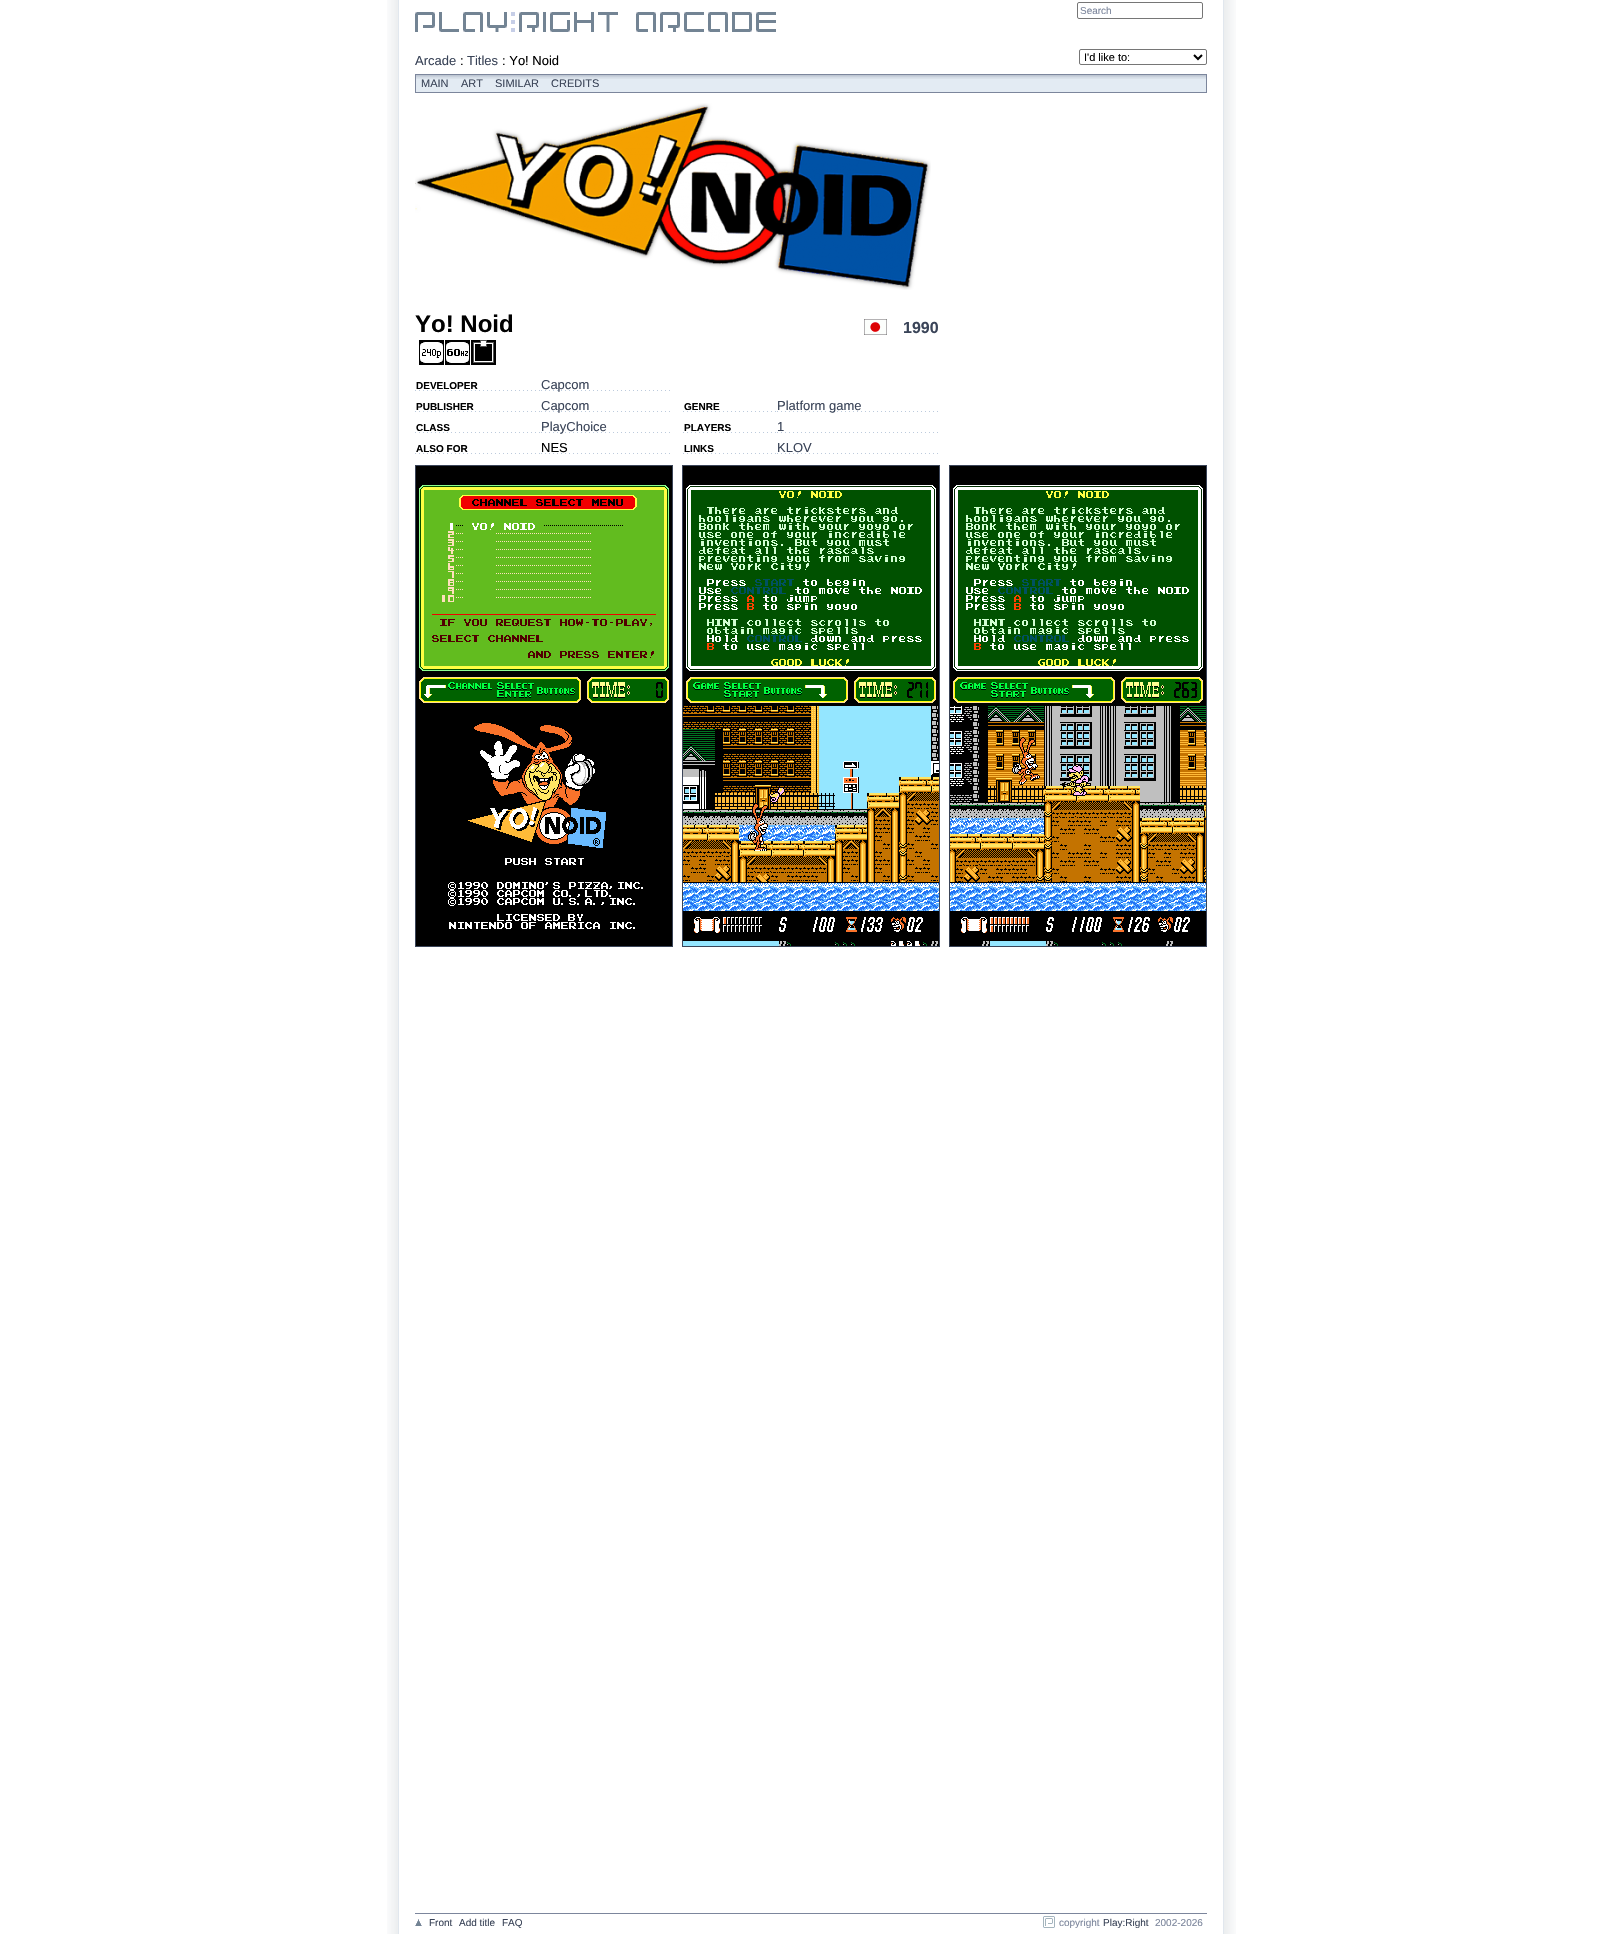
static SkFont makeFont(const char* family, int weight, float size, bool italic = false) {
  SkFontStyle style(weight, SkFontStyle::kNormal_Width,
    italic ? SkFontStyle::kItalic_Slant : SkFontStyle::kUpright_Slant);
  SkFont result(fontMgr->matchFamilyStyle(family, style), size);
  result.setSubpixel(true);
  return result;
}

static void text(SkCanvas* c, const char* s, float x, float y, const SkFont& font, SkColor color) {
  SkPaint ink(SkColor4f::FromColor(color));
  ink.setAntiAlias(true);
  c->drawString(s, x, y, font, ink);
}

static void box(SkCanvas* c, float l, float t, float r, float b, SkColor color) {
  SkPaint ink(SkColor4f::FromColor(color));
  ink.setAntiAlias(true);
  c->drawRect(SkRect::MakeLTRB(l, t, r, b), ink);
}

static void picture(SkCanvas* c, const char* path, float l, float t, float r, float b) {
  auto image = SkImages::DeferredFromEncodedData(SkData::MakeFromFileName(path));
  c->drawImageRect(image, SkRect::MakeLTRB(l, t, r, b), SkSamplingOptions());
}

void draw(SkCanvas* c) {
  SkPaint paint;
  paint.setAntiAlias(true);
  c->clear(0xffffffff);
  picture(c, "img_01.png", 387, 0, 1236, 1934);
  paint.setStyle(SkPaint::kStroke_Style);
  paint.setStrokeWidth(1);
  paint.setColor(0xff767676);
  c->drawRoundRect(SkRect::MakeLTRB(1077.5f, 2.5f, 1202.5f, 18.5f), 1.5f, 1.5f, paint);
  SkFont face1 = makeFont("Liberation Sans", 400, 10);
  text(c, "Search", 1080, 14, face1, 0xff7c869c);
  picture(c, "img_02.png", 415, 12, 776, 32);
  SkFont face2 = makeFont("Liberation Sans", 400, 13);
  text(c, "Arcade", 415, 65, face2, 0xff3a4458);
  text(c, ":", 460, 65, face2, 0xff000000);
  text(c, "Titles", 467, 65, face2, 0xff3a4458);
  text(c, ": Yo! Noid", 502, 65, face2, 0xff000000);
  c->drawRoundRect(SkRect::MakeLTRB(1079.5f, 49.5f, 1206.5f, 64.5f), 1.5f, 1.5f, paint);
  paint.setStrokeWidth(2);
  paint.setColor(0xff000000);
  c->drawPath(SkPathBuilder().moveTo(1194, 55).lineTo(1198, 59).lineTo(1202, 55).detach(), paint);
  SkFont face3 = makeFont("Liberation Sans", 400, 11);
  text(c, "I'd like to:", 1084, 61, face3, 0xff000000);
  box(c, 416, 79, 1206, 92, 0xffe3ebf3);
  picture(c, "img_03.png", 416, 75, 1206, 79);
  paint.setStrokeWidth(1);
  paint.setColor(0xff7c869c);
  c->drawRect(SkRect::MakeLTRB(415.5f, 74.5f, 1206.5f, 92.5f), paint);
  text(c, "MAIN", 421, 87, face3, 0xff3a4458);
  text(c, "ART", 461, 87, face3, 0xff3a4458);
  text(c, "SIMILAR", 495, 87, face3, 0xff3a4458);
  text(c, "CREDITS", 551, 87, face3, 0xff3a4458);
  picture(c, "img_04.png", 415, 103, 931, 290);
  SkFont face4 = makeFont("Liberation Sans", 700, 24);
  text(c, "Yo! Noid", 415, 332, face4, 0xff000000);
  picture(c, "img_05.png", 864, 319, 887, 335);
  SkFont face5 = makeFont("Liberation Sans", 700, 16);
  text(c, "1990", 903, 333, face5, 0xff3a4458);
  picture(c, "img_06.png", 419, 340, 444, 365);
  picture(c, "img_07.png", 445, 340, 470, 365);
  picture(c, "img_08.png", 471, 340, 496, 365);
  picture(c, "img_09.png", 415, 390, 540, 391);
  SkFont face6 = makeFont("Liberation Sans", 700, 10);
  text(c, "DEVELOPER", 416, 389, face6, 0xff000000);
  picture(c, "img_10.png", 541, 390, 670, 391);
  text(c, "Capcom", 541, 389, face2, 0xff3a4458);
  picture(c, "img_09.png", 415, 411, 540, 412);
  text(c, "PUBLISHER", 416, 410, face6, 0xff000000);
  picture(c, "img_10.png", 541, 411, 670, 412);
  text(c, "Capcom", 541, 410, face2, 0xff3a4458);
  picture(c, "img_09.png", 415, 432, 540, 433);
  text(c, "CLASS", 416, 431, face6, 0xff000000);
  picture(c, "img_10.png", 541, 432, 670, 433);
  text(c, "PlayChoice", 541, 431, face2, 0xff3a4458);
  picture(c, "img_09.png", 415, 453, 540, 454);
  text(c, "ALSO FOR", 416, 452, face6, 0xff000000);
  picture(c, "img_10.png", 541, 453, 670, 454);
  text(c, "NES", 541, 452, face2, 0xff000000);
  picture(c, "img_11.png", 683, 411, 776, 412);
  text(c, "GENRE", 684, 410, face6, 0xff000000);
  picture(c, "img_12.png", 777, 411, 938, 412);
  text(c, "Platform game", 777, 410, face2, 0xff3a4458);
  picture(c, "img_11.png", 683, 432, 776, 433);
  text(c, "PLAYERS", 684, 431, face6, 0xff000000);
  picture(c, "img_12.png", 777, 432, 938, 433);
  text(c, "1", 777, 431, face2, 0xff3a4458);
  picture(c, "img_11.png", 683, 453, 776, 454);
  text(c, "LINKS", 684, 452, face6, 0xff000000);
  picture(c, "img_12.png", 777, 453, 938, 454);
  text(c, "KLOV", 777, 452, face2, 0xff3a4458);
  paint.setColor(0xff3a4458);
  c->drawRect(SkRect::MakeLTRB(415.5f, 465.5f, 672.5f, 946.5f), paint);
  picture(c, "img_13.png", 416, 466, 672, 946);
  c->drawRect(SkRect::MakeLTRB(682.5f, 465.5f, 939.5f, 946.5f), paint);
  picture(c, "img_14.png", 683, 466, 939, 946);
  c->drawRect(SkRect::MakeLTRB(949.5f, 465.5f, 1206.5f, 946.5f), paint);
  picture(c, "img_15.png", 950, 466, 1206, 946);
  box(c, 415, 1913, 1207, 1914, 0xff7c869c);
  picture(c, "img_16.png", 415, 1919, 422, 1926);
  text(c, "Front", 429, 1926, face1, 0xff3a4458);
  text(c, "Add title", 459, 1926, face1, 0xff3a4458);
  text(c, "FAQ", 502, 1926, face1, 0xff3a4458);
  picture(c, "img_17.png", 1043, 1916, 1055, 1928);
  text(c, "copyright", 1059, 1926, face1, 0xff7c869c);
  text(c, "Play:Right", 1103, 1926, face1, 0xff3a4458);
  text(c, "2002-2026", 1155, 1926, face1, 0xff7c869c);
}
